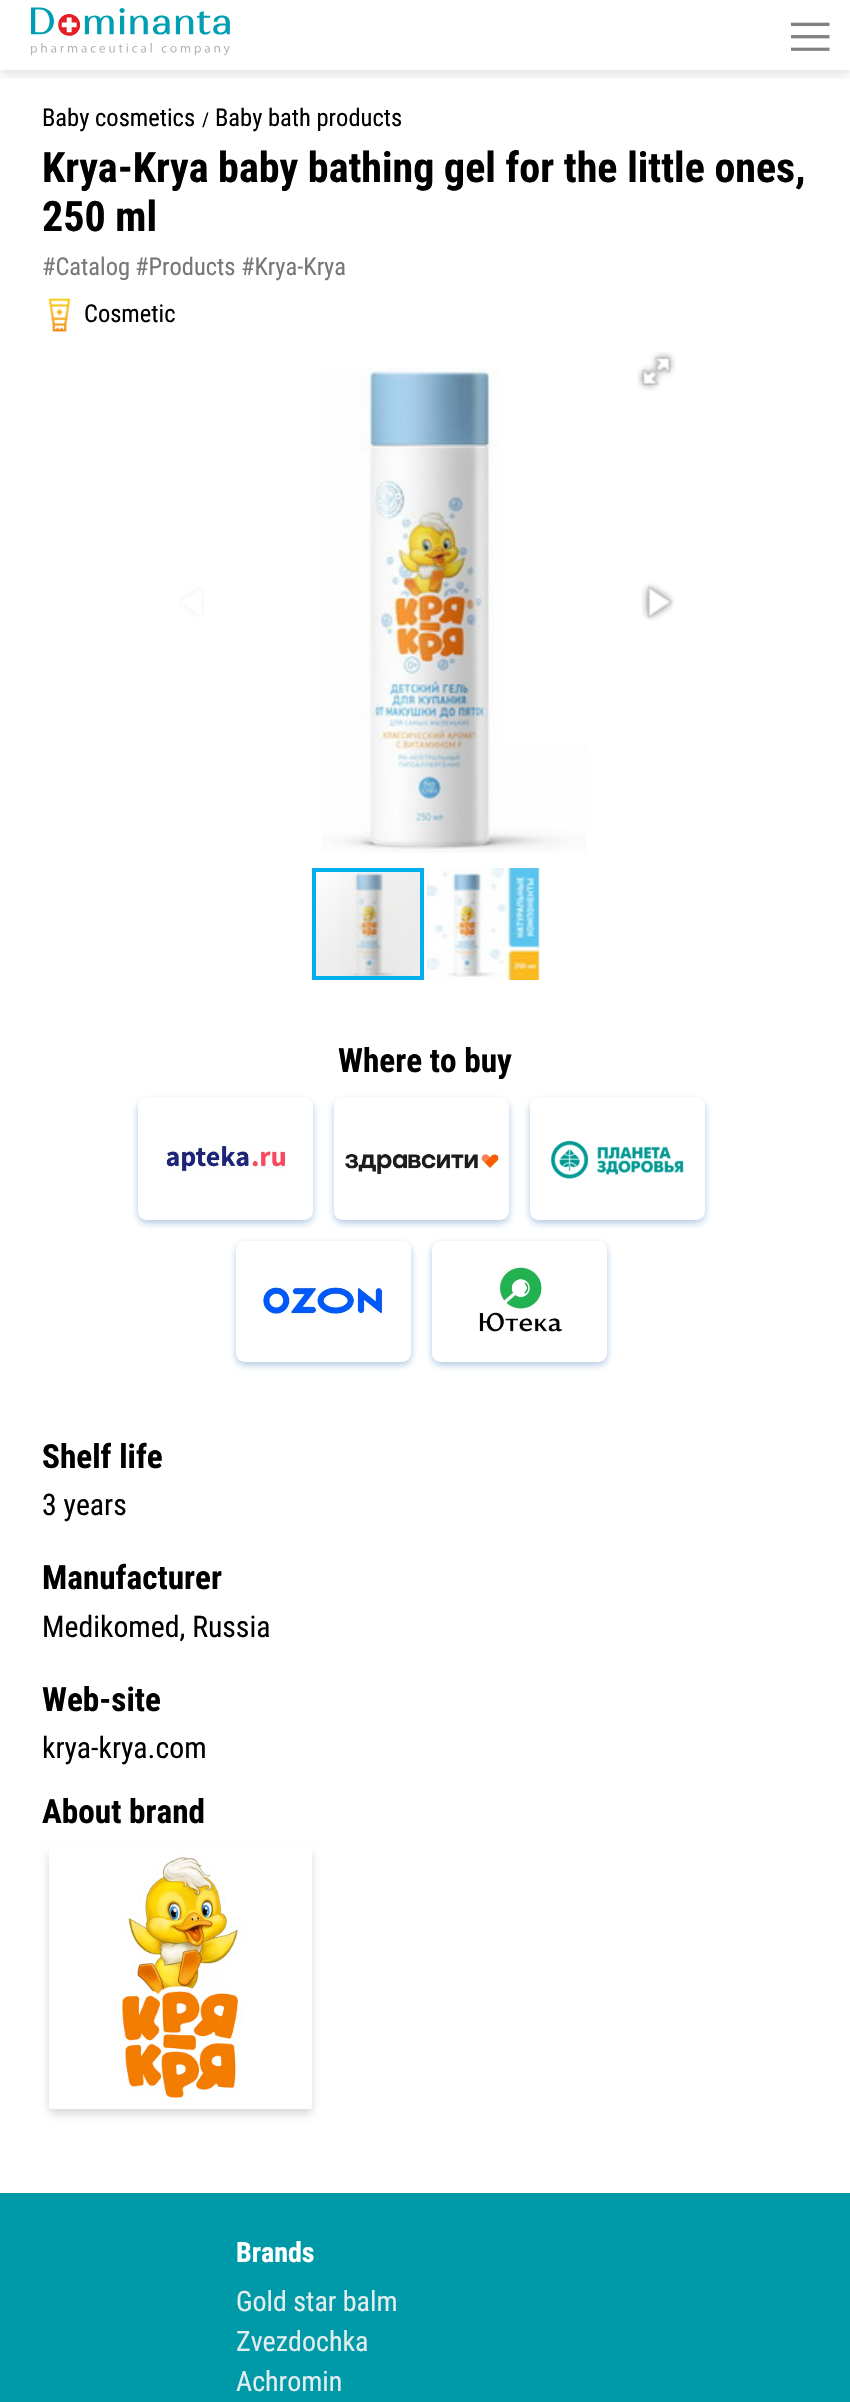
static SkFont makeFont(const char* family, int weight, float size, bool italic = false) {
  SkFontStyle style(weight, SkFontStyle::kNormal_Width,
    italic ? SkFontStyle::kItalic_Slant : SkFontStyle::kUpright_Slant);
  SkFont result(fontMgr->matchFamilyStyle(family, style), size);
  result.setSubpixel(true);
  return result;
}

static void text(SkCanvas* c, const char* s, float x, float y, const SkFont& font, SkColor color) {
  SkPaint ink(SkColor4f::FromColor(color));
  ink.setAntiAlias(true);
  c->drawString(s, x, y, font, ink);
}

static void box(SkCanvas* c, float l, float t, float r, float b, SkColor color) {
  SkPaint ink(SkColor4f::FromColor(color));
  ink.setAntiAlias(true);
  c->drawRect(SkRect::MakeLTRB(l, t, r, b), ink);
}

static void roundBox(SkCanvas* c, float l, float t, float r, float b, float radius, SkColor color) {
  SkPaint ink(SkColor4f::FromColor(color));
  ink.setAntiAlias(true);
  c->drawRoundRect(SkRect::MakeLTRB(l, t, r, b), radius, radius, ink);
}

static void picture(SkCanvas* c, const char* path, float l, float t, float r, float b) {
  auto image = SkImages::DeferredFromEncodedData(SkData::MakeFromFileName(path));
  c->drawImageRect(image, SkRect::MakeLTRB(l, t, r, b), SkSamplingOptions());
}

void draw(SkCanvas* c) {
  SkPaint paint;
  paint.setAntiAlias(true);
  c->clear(0xffffffff);
  c->save();
  c->clipRect(SkRect::MakeLTRB(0, 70, 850, 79));
  paint.setColor(0x1a000000);
  paint.setMaskFilter(SkMaskFilter::MakeBlur(kNormal_SkBlurStyle, 5));
  c->drawRect(SkRect::MakeLTRB(0, 5, 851, 75), paint);
  paint.setMaskFilter(nullptr);
  c->restore();
  picture(c, "img_01.png", 30, 7, 230, 56);
  picture(c, "img_02.png", 791, 22, 830, 51);
  SkFont face1 = makeFont("Roboto Condensed", 400, 24.5f);
  text(c, "Baby cosmetics", 42, 126, face1, 0xff000000);
  SkFont face2 = makeFont("Roboto Condensed", 400, 19);
  text(c, "/", 202, 126, face2, 0xff000000);
  text(c, "Baby bath products", 215, 126, face1, 0xff000000);
  SkFont face3 = makeFont("Roboto Condensed", 700, 42);
  text(c, "Krya-Krya baby bathing gel for the little ones,", 42, 182, face3, 0xff000000);
  text(c, "250 ml", 42, 231, face3, 0xff000000);
  text(c, "#Catalog", 42, 275, face1, 0xff777777);
  text(c, "#Products", 135, 275, face1, 0xff777777);
  text(c, "#Krya-Krya", 241, 275, face1, 0xff777777);
  picture(c, "img_03.png", 48, 298, 71, 332);
  text(c, "Cosmetic", 84, 322, face1, 0xff000000);
  picture(c, "img_04.png", 321, 367, 587, 853);
  picture(c, "img_05.png", 637, 352, 676, 391);
  picture(c, "img_06.png", 179, 587, 204, 617);
  picture(c, "img_07.png", 641, 583, 675, 621);
  picture(c, "img_09.png", 316, 872, 420, 976);
  paint.setStyle(SkPaint::kStroke_Style);
  paint.setStrokeWidth(4);
  paint.setColor(0xff00afea);
  c->drawRect(SkRect::MakeLTRB(314, 870, 422, 978), paint);
  box(c, 427, 868, 539, 980, 0xffe5e5e5);
  picture(c, "img_08.png", 426, 868, 540, 980);
  SkFont face4 = makeFont("Roboto Condensed", 700, 33.25f);
  text(c, "Where to buy", 338, 1072, face4, 0xff000000);
  c->save();
  c->clipPath(SkPathBuilder(SkPathFillType::kEvenOdd).moveTo(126, 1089).lineTo(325, 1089).lineTo(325, 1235).lineTo(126, 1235).close().moveTo(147, 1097).lineTo(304, 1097).cubicTo(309, 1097, 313, 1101, 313, 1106).lineTo(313, 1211).cubicTo(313, 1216, 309, 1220, 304, 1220).lineTo(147, 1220).cubicTo(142, 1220, 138, 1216, 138, 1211).lineTo(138, 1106).cubicTo(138, 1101, 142, 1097, 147, 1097).close().detach(), true);
  paint.setStyle(SkPaint::kFill_Style);
  paint.setColor(0x4f004ca0);
  paint.setMaskFilter(SkMaskFilter::MakeBlur(kNormal_SkBlurStyle, 3.5f));
  c->drawRoundRect(SkRect::MakeLTRB(138, 1101, 313, 1223), 9, 9, paint);
  paint.setMaskFilter(nullptr);
  c->restore();
  picture(c, "img_10.png", 166, 1144, 286, 1173);
  c->save();
  c->clipPath(SkPathBuilder(SkPathFillType::kEvenOdd).moveTo(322, 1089).lineTo(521, 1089).lineTo(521, 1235).lineTo(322, 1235).close().moveTo(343, 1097).lineTo(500, 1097).cubicTo(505, 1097, 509, 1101, 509, 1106).lineTo(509, 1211).cubicTo(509, 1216, 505, 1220, 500, 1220).lineTo(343, 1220).cubicTo(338, 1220, 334, 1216, 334, 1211).lineTo(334, 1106).cubicTo(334, 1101, 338, 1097, 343, 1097).close().detach(), true);
  paint.setMaskFilter(SkMaskFilter::MakeBlur(kNormal_SkBlurStyle, 3.5f));
  c->drawRoundRect(SkRect::MakeLTRB(334, 1101, 509, 1223), 9, 9, paint);
  paint.setMaskFilter(nullptr);
  c->restore();
  picture(c, "img_11.png", 345, 1153, 499, 1175);
  c->save();
  c->clipPath(SkPathBuilder(SkPathFillType::kEvenOdd).moveTo(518, 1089).lineTo(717, 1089).lineTo(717, 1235).lineTo(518, 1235).close().moveTo(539, 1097).lineTo(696, 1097).cubicTo(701, 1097, 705, 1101, 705, 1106).lineTo(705, 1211).cubicTo(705, 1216, 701, 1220, 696, 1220).lineTo(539, 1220).cubicTo(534, 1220, 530, 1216, 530, 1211).lineTo(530, 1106).cubicTo(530, 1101, 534, 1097, 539, 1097).close().detach(), true);
  paint.setMaskFilter(SkMaskFilter::MakeBlur(kNormal_SkBlurStyle, 3.5f));
  c->drawRoundRect(SkRect::MakeLTRB(530, 1101, 705, 1223), 9, 9, paint);
  paint.setMaskFilter(nullptr);
  c->restore();
  picture(c, "img_12.png", 550, 1140, 684, 1179);
  c->save();
  c->clipPath(SkPathBuilder(SkPathFillType::kEvenOdd).moveTo(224, 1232).lineTo(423, 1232).lineTo(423, 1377).lineTo(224, 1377).close().moveTo(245, 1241).lineTo(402, 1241).cubicTo(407, 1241, 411, 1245, 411, 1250).lineTo(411, 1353).cubicTo(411, 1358, 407, 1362, 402, 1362).lineTo(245, 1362).cubicTo(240, 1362, 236, 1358, 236, 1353).lineTo(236, 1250).cubicTo(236, 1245, 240, 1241, 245, 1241).close().detach(), true);
  paint.setMaskFilter(SkMaskFilter::MakeBlur(kNormal_SkBlurStyle, 3.5f));
  c->drawRoundRect(SkRect::MakeLTRB(236, 1244, 411, 1365), 9, 9, paint);
  paint.setMaskFilter(nullptr);
  c->restore();
  picture(c, "img_13.png", 262, 1284, 383, 1315);
  c->save();
  c->clipPath(SkPathBuilder(SkPathFillType::kEvenOdd).moveTo(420, 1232).lineTo(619, 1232).lineTo(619, 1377).lineTo(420, 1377).close().moveTo(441, 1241).lineTo(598, 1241).cubicTo(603, 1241, 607, 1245, 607, 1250).lineTo(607, 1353).cubicTo(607, 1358, 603, 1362, 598, 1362).lineTo(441, 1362).cubicTo(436, 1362, 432, 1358, 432, 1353).lineTo(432, 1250).cubicTo(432, 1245, 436, 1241, 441, 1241).close().detach(), true);
  paint.setMaskFilter(SkMaskFilter::MakeBlur(kNormal_SkBlurStyle, 3.5f));
  c->drawRoundRect(SkRect::MakeLTRB(432, 1244, 607, 1365), 9, 9, paint);
  paint.setMaskFilter(nullptr);
  c->restore();
  picture(c, "img_14.png", 479, 1267, 562, 1332);
  text(c, "Shelf life", 42, 1468, face4, 0xff000000);
  SkFont face5 = makeFont("Roboto Condensed", 400, 29.75f);
  text(c, "3 years", 42, 1515, face5, 0xff000000);
  text(c, "Manufacturer", 42, 1589, face4, 0xff000000);
  text(c, "Medikomed, Russia", 42, 1637, face5, 0xff000000);
  text(c, "Web-site", 42, 1711, face4, 0xff000000);
  text(c, "krya-krya.com", 42, 1758, face5, 0xff000000);
  text(c, "About brand", 42, 1823, face4, 0xff000000);
  paint.setColor(0xffd8d8d8);
  paint.setMaskFilter(SkMaskFilter::MakeBlur(kNormal_SkBlurStyle, 4.5f));
  c->drawRoundRect(SkRect::MakeLTRB(49, 1852, 312, 2114), 5, 5, paint);
  paint.setMaskFilter(nullptr);
  roundBox(c, 49, 1846, 312, 2109, 5, 0xffffffff);
  picture(c, "img_15.png", 49, 1852, 312, 2109);
  box(c, 0, 2193, 850, 2402, 0xff0099a7);
  SkFont face6 = makeFont("Roboto Condensed", 700, 28);
  text(c, "Brands", 236, 2262, face6, 0xffffffff);
  SkFont face7 = makeFont("Roboto Condensed", 400, 28);
  text(c, "Gold star balm", 236, 2311, face7, 0xffe1edef);
  text(c, "Zvezdochka", 236, 2351, face7, 0xffe1edef);
  text(c, "Achromin", 236, 2391, face7, 0xffe1edef);
}
